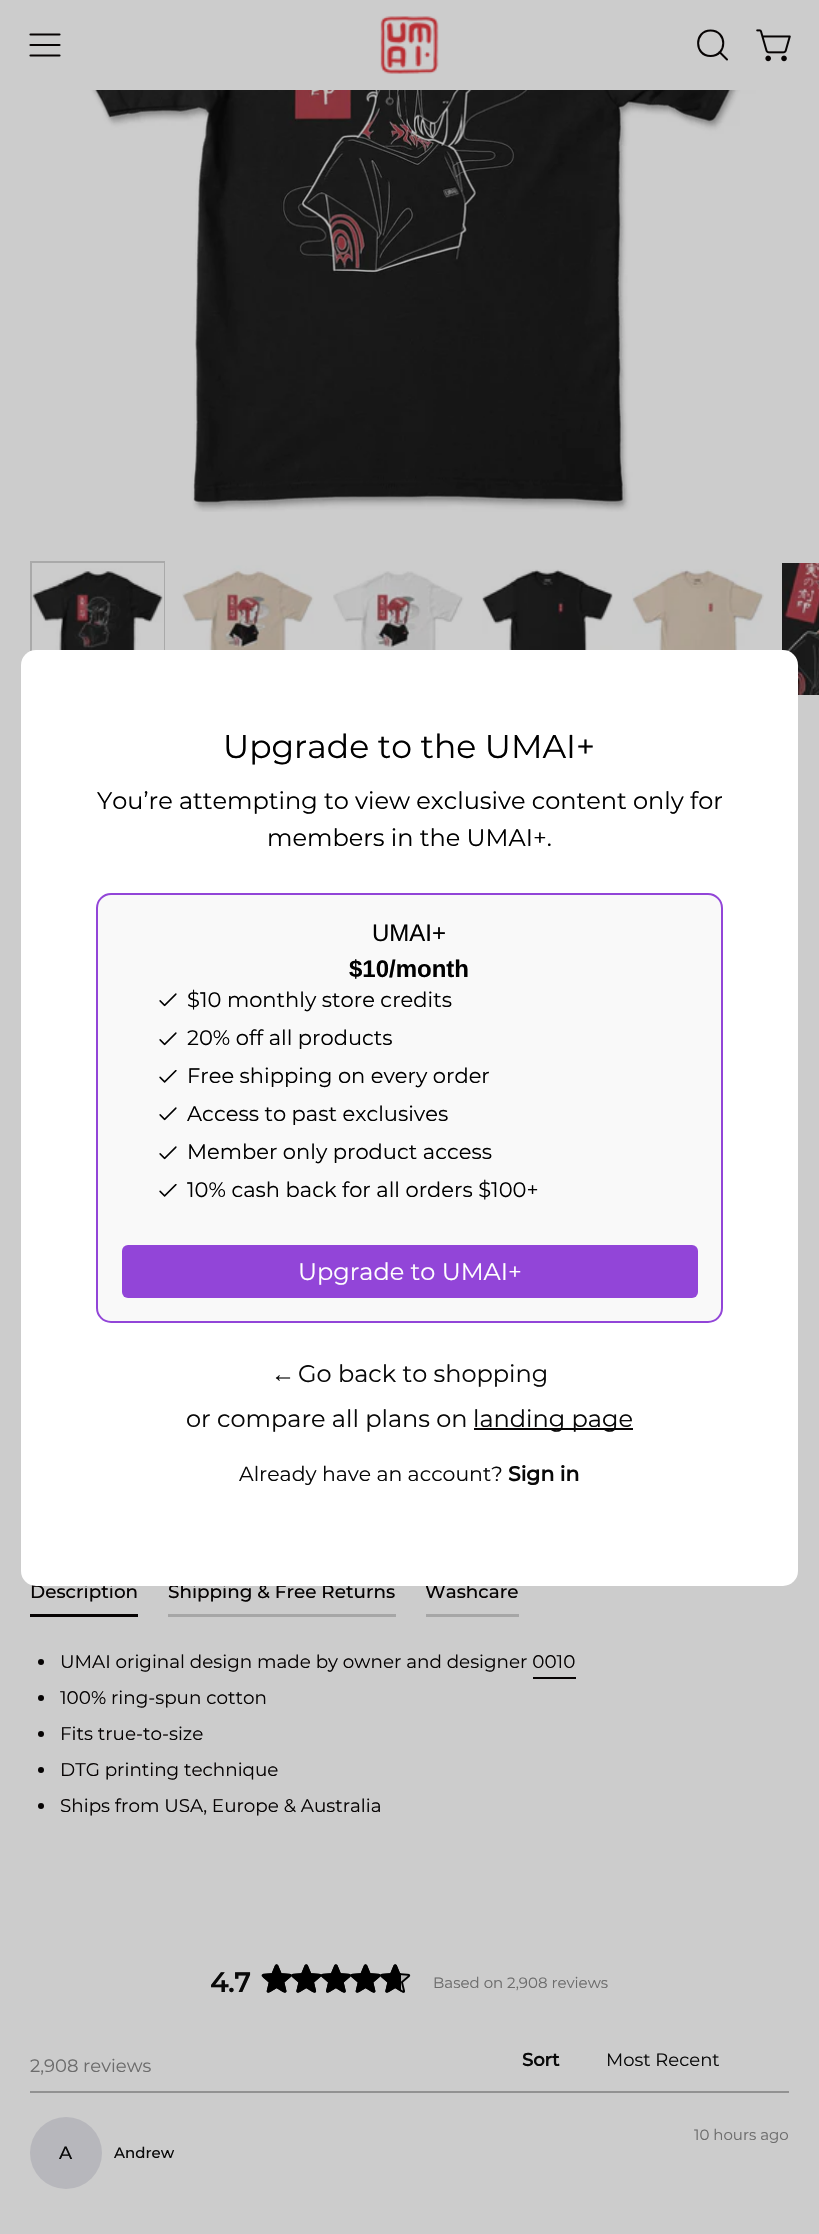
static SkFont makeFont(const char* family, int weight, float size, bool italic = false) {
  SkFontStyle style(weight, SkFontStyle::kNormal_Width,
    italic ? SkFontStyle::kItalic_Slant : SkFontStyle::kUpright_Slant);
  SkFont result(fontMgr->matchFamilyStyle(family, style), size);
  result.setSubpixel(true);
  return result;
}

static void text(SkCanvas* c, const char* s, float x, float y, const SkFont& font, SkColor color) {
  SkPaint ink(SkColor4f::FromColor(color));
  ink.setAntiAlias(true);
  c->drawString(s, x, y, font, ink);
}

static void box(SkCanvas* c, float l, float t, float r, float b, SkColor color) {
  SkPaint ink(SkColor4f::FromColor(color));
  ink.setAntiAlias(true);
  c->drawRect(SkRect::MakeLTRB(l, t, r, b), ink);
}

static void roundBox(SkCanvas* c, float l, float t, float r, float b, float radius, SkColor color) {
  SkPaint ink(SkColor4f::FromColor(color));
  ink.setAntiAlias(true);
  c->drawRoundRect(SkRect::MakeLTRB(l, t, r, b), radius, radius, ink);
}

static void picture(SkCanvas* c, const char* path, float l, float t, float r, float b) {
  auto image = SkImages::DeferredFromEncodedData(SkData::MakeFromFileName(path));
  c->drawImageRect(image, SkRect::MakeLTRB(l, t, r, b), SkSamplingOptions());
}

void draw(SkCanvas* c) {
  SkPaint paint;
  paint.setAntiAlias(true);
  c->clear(0xffcccccc);
  paint.setStyle(SkPaint::kStroke_Style);
  paint.setStrokeWidth(2.2f);
  paint.setStrokeCap(SkPaint::kRound_Cap);
  paint.setStrokeJoin(SkPaint::kRound_Join);
  paint.setColor(0xff060303);
  c->drawPath(SkPathBuilder().moveTo(30.5f, 45).lineTo(59.5f, 45).moveTo(30.5f, 34.5f).lineTo(59.5f, 34.5f).moveTo(30.5f, 55.5f).lineTo(59.5f, 55.5f).detach(), paint);
  picture(c, "img_01.png", 380, 16, 439, 74);
  paint.setStrokeWidth(2);
  c->drawPath(SkPathBuilder().moveTo(710.5f, 56).cubicTo(727.5f, 56, 727.5f, 30.5f, 710.5f, 30.5f).cubicTo(694, 30.5f, 694, 56, 710.5f, 56).close().moveTo(719.5f, 52).lineTo(727, 59.5f).detach(), paint);
  picture(c, "img_02.png", 756, 29, 791, 62);
  paint.setStrokeCap(SkPaint::kButt_Cap);
  paint.setStrokeJoin(SkPaint::kMiter_Join);
  paint.setColor(0xffa9a9a9);
  c->drawRect(SkRect::MakeLTRB(31, 562, 164, 695), paint);
  picture(c, "img_06.png", 32, 563, 164, 651);
  picture(c, "img_11.png", 782, 563, 819, 695);
  SkFont face1 = makeFont("Montserrat", 500, 18.35f);
  text(c, "Description", 30, 1598, face1, 0xff060303);
  text(c, "Shipping & Free Returns", 168, 1598, face1, 0xff060303);
  text(c, "Washcare", 425, 1598, face1, 0xff060303);
  roundBox(c, 21, 650, 798, 1586, 15, 0xffffffff);
  SkFont face2 = makeFont("Montserrat", 400, 33);
  text(c, "Upgrade to the UMAI+", 223, 758, face2, 0xff000000);
  SkFont face3 = makeFont("Montserrat", 400, 24);
  text(c, "You’re attempting to view exclusive content only for", 97, 809, face3, 0xff000000);
  text(c, "members in the UMAI+.", 267, 846, face3, 0xff000000);
  paint.setStyle(SkPaint::kFill_Style);
  paint.setColor(0xfff9f9f9);
  c->drawRoundRect(SkRect::MakeLTRB(97, 894, 722, 1322), 14, 14, paint);
  paint.setStyle(SkPaint::kStroke_Style);
  paint.setColor(0xff9245d8);
  c->drawRoundRect(SkRect::MakeLTRB(97, 894, 722, 1322), 14, 14, paint);
  SkFont face4 = makeFont("Liberation Sans", 400, 24);
  text(c, "UMAI+", 372, 941, face4, 0xff000000);
  SkFont face5 = makeFont("Liberation Sans", 700, 24);
  text(c, "$10/month", 349, 977, face5, 0xff000000);
  picture(c, "img_03.png", 159, 993, 177, 1007);
  SkFont face6 = makeFont("Montserrat", 400, 21);
  text(c, "$10 monthly store credits", 187, 1007, face6, 0xff000000);
  picture(c, "img_03.png", 159, 1032, 177, 1046);
  text(c, "20% off all products", 187, 1045, face6, 0xff000000);
  picture(c, "img_04.png", 159, 1070, 177, 1083);
  text(c, "Free shipping on every order", 187, 1083, face6, 0xff000000);
  picture(c, "img_03.png", 159, 1107, 177, 1121);
  text(c, "Access to past exclusives", 187, 1121, face6, 0xff000000);
  picture(c, "img_03.png", 159, 1146, 177, 1160);
  text(c, "Member only product access", 187, 1159, face6, 0xff000000);
  picture(c, "img_04.png", 159, 1184, 177, 1197);
  text(c, "10% cash back for all orders $100+", 187, 1197, face6, 0xff000000);
  roundBox(c, 122, 1245, 698, 1298, 6, 0xff9245d8);
  text(c, "Upgrade to UMAI+", 298, 1280, face3, 0xffffffff);
  text(c, "←", 271, 1382, face4, 0xff090909);
  text(c, "Go back to shopping", 298, 1382, face3, 0xff090909);
  text(c, "or compare all plans on", 186, 1427, face3, 0xff090909);
  box(c, 474, 1428, 633, 1430, 0xff070404);
  text(c, "landing page", 473, 1427, face3, 0xff090909);
  SkFont face7 = makeFont("Montserrat", 400, 20.4f);
  text(c, "Already have an account?", 239, 1481, face7, 0xff090909);
  SkFont face8 = makeFont("Montserrat", 700, 20.4f);
  text(c, "Sign in", 508, 1481, face8, 0xff090909);
  picture(c, "img_05.png", 48, 90, 782, 512);
  picture(c, "img_07.png", 182, 565, 314, 650);
  picture(c, "img_08.png", 333, 571, 464, 650);
  picture(c, "img_09.png", 482, 569, 613, 650);
  picture(c, "img_10.png", 632, 569, 764, 650);
  box(c, 30, 1614, 138, 1617, 0xff060303);
  box(c, 168, 1614, 396, 1617, 0xffa6a6a6);
  box(c, 426, 1614, 519, 1617, 0xffa6a6a6);
  paint.setStyle(SkPaint::kFill_Style);
  paint.setColor(0xff060303);
  c->drawCircle(41, 1662, 3, paint);
  SkFont face9 = makeFont("Montserrat", 400, 18.35f);
  text(c, "UMAI original design made by owner and designer 0010", 60, 1668, face9, 0xff060303);
  box(c, 533, 1677, 576, 1679, 0xff060303);
  c->drawCircle(41, 1698, 3, paint);
  text(c, "100% ring-spun cotton", 60, 1704, face9, 0xff060303);
  c->drawCircle(41, 1734, 3, paint);
  text(c, "Fits true-to-size", 60, 1740, face9, 0xff060303);
  c->drawCircle(41, 1770, 3, paint);
  text(c, "DTG printing technique", 60, 1776, face9, 0xff060303);
  c->drawCircle(41, 1806, 3, paint);
  text(c, "Ships from USA, Europe & Australia", 60, 1812, face9, 0xff060303);
  SkFont face10 = makeFont("Montserrat", 700, 27);
  text(c, "4.7", 210, 1992, face10, 0xff090909);
  picture(c, "img_12.png", 261, 1964, 411, 1993);
  picture(c, "img_13.png", 263, 1965, 401, 1992);
  SkFont face11 = makeFont("Montserrat", 400, 15);
  text(c, "Based on 2,908 reviews", 433, 1988, face11, 0xff6c6c6c);
  SkFont face12 = makeFont("Montserrat", 400, 18);
  text(c, "2,908 reviews", 30, 2072, face12, 0xff6c6c6c);
  SkFont face13 = makeFont("Montserrat", 700, 18);
  text(c, "Sort", 522, 2066, face13, 0xff090909);
  text(c, "Most Recent", 606, 2066, face12, 0xff090909);
  box(c, 30, 2091, 789, 2093, 0xff929292);
  text(c, "10 hours ago", 694, 2140, face11, 0xff6c6c6c);
  paint.setColor(0xffb7b7bc);
  c->drawCircle(66, 2153, 36, paint);
  SkFont face14 = makeFont("Montserrat", 500, 18);
  text(c, "A", 59, 2159, face14, 0xff090909);
  SkFont face15 = makeFont("Montserrat", 500, 15);
  text(c, "Andrew", 114, 2158, face15, 0xff090909);
}
